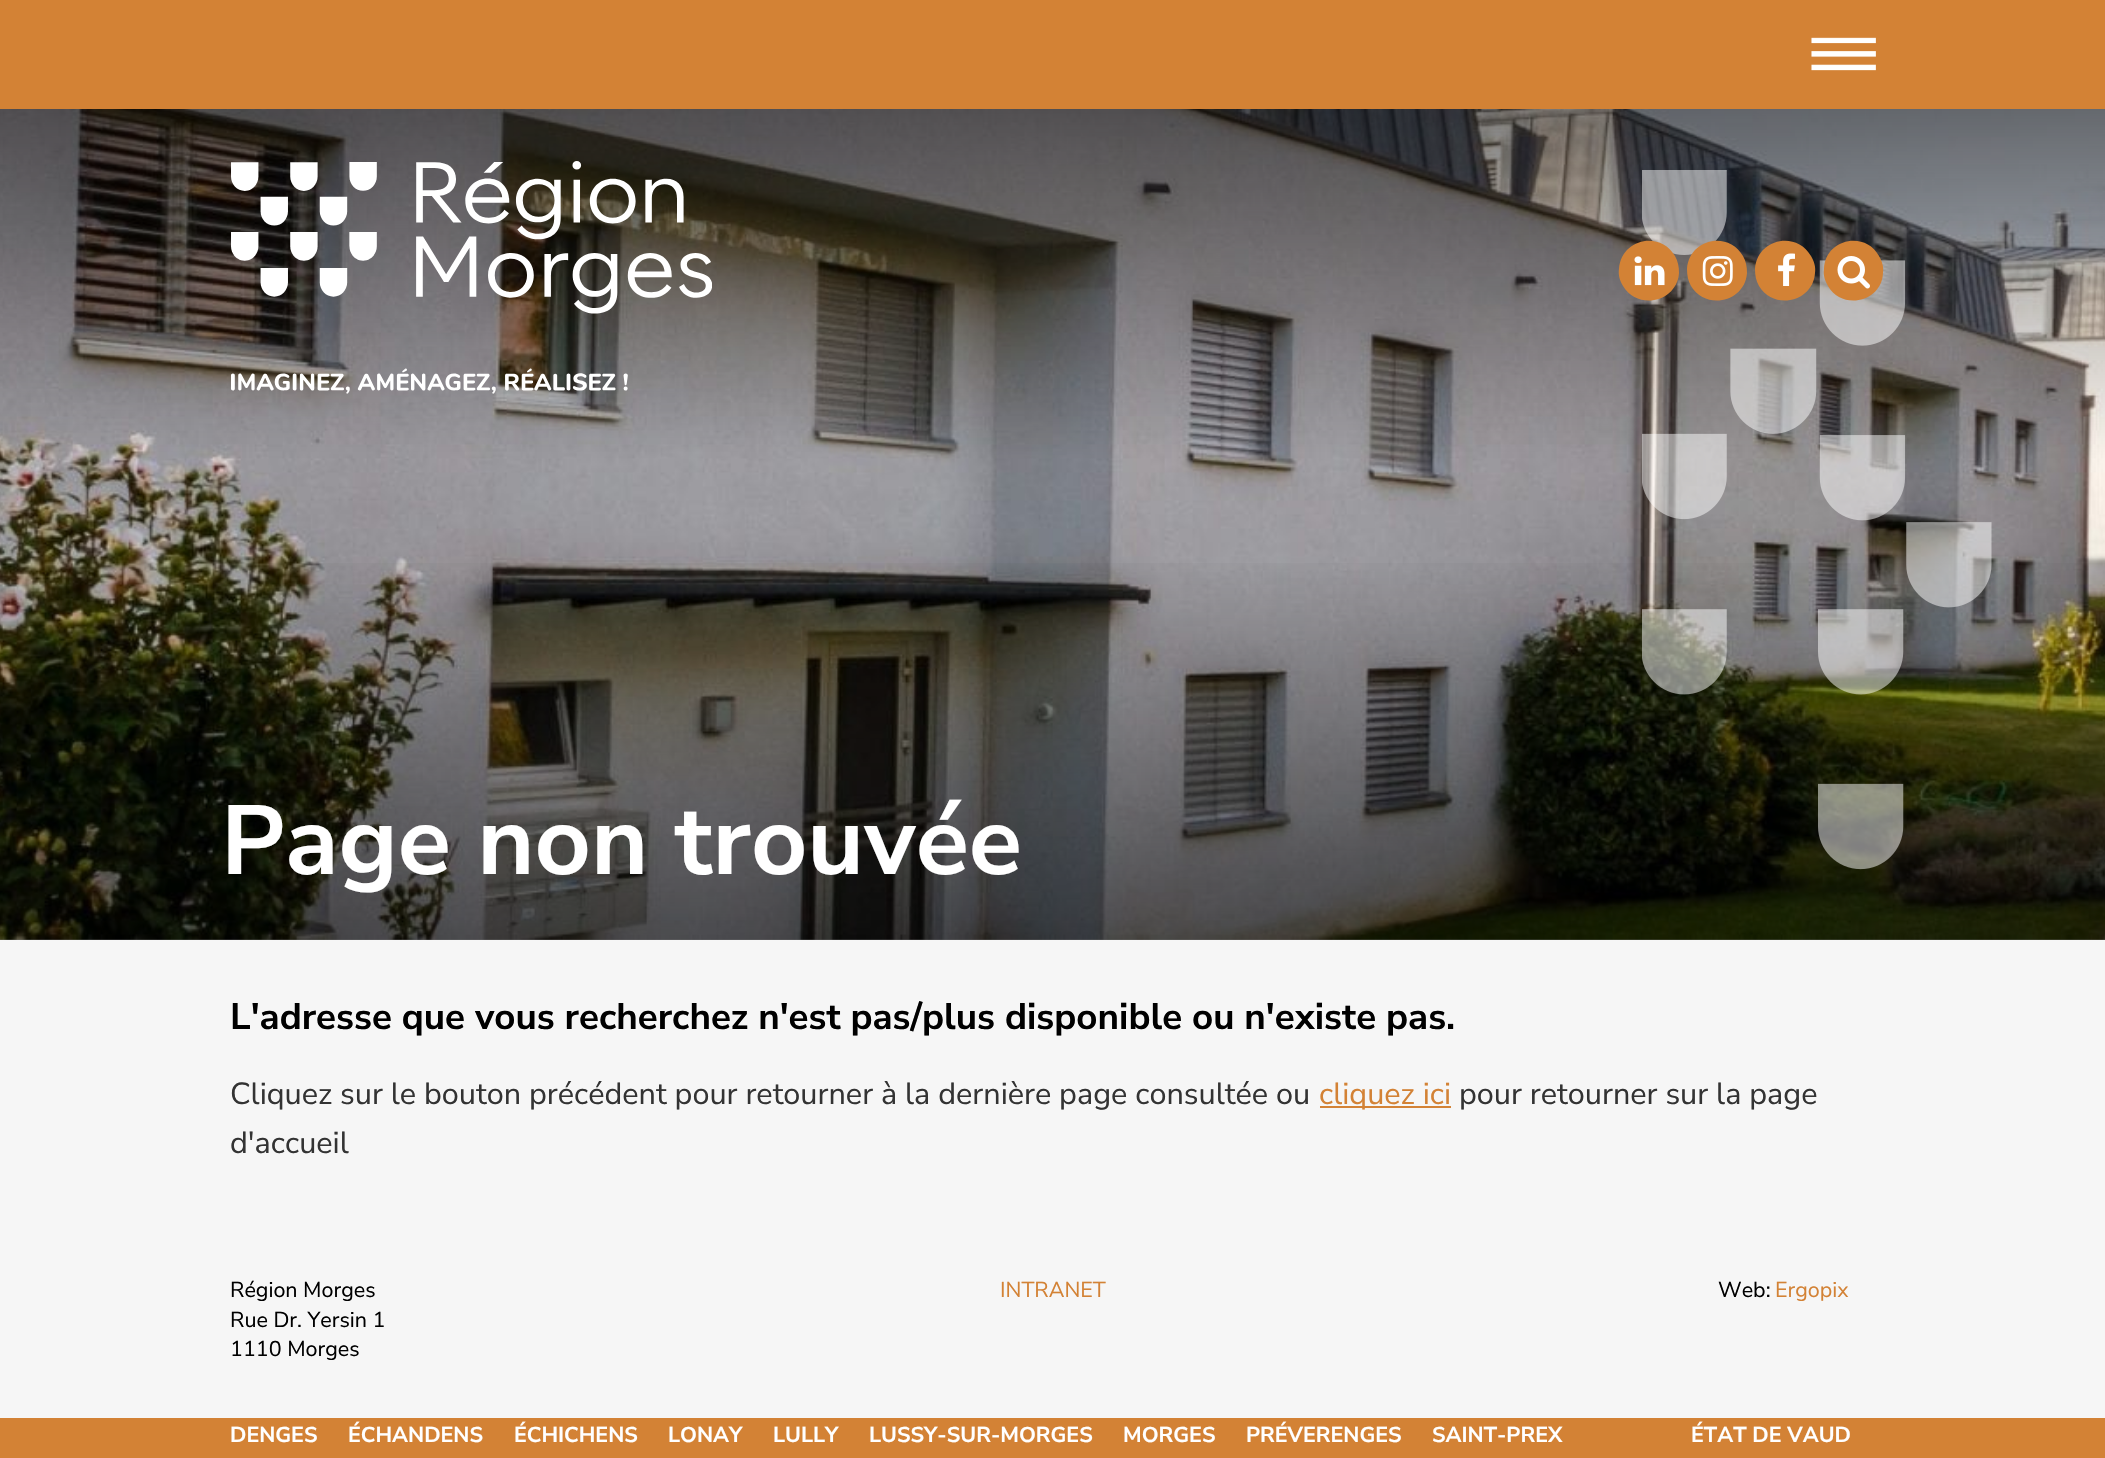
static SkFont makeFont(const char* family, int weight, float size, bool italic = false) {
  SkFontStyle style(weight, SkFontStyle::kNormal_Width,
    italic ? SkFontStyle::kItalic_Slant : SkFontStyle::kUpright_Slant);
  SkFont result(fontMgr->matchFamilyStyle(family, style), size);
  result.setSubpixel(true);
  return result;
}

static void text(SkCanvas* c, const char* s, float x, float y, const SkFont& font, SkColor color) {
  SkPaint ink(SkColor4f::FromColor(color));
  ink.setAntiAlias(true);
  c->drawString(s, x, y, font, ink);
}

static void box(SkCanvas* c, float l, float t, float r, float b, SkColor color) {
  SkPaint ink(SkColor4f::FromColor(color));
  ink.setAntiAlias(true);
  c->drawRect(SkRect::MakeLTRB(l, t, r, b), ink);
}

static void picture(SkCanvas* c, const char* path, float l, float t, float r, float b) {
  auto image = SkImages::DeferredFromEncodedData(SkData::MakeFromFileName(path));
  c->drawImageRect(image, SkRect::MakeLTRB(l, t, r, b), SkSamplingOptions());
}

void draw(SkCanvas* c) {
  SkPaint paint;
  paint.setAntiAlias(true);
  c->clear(0xfff6f6f6);
  box(c, 0, 0, 2105, 109, 0xffd38235);
  picture(c, "img_01.png", 1811, 37, 1876, 71);
  picture(c, "img_02.png", 0, 109, 2105, 940);
  {
    const SkColor colors[] = {0x80000000, 0x00000000};
    const float stops[] = {0, 1};
    const SkPoint ends[] = {{1053, 940}, {1053, 546}};
    paint.setShader(SkGradientShader::MakeLinear(ends, colors, stops, 2, SkTileMode::kClamp));
    paint.setAlpha(255);
  }
  c->drawRect(SkRect::MakeLTRB(0, 563, 2105, 940), paint);
  picture(c, "img_03.png", 231, 161, 712, 394);
  picture(c, "img_08.png", 1642, 170, 1992, 870);
  paint.setShader(nullptr);
  paint.setColor(0xffd38235);
  c->drawPath(SkPathBuilder().moveTo(1675, 256).cubicTo(1678, 261, 1679, 267, 1679, 273).cubicTo(1677, 302, 1638, 311, 1623, 286).cubicTo(1620, 281, 1618, 275, 1619, 269).cubicTo(1621, 239, 1660, 230, 1675, 256).close().detach(), paint);
  picture(c, "img_04.png", 1634, 256, 1665, 286);
  c->drawPath(SkPathBuilder().moveTo(1743, 256).cubicTo(1746, 261, 1747, 267, 1747, 273).cubicTo(1745, 302, 1706, 311, 1691, 286).cubicTo(1688, 281, 1687, 275, 1687, 269).cubicTo(1689, 239, 1728, 230, 1743, 256).close().detach(), paint);
  picture(c, "img_05.png", 1702, 256, 1733, 286);
  c->drawPath(SkPathBuilder().moveTo(1811, 256).cubicTo(1814, 261, 1816, 267, 1815, 273).cubicTo(1813, 302, 1774, 311, 1759, 286).cubicTo(1756, 281, 1755, 275, 1755, 269).cubicTo(1757, 239, 1796, 230, 1811, 256).close().detach(), paint);
  picture(c, "img_06.png", 1778, 253, 1795, 286);
  c->drawPath(SkPathBuilder().moveTo(1879, 256).cubicTo(1882, 261, 1884, 267, 1883, 273).cubicTo(1882, 302, 1842, 311, 1828, 286).cubicTo(1825, 281, 1823, 275, 1824, 269).cubicTo(1825, 239, 1865, 230, 1879, 256).close().detach(), paint);
  picture(c, "img_07.png", 1837, 256, 1870, 289);
  SkFont face1 = makeFont("Nunito Sans", 700, 98);
  text(c, "Page non trouvée", 221, 874, face1, 0xffffffff);
  SkFont face2 = makeFont("Nunito Sans", 700, 36.75f);
  text(c, "L'adresse que vous recherchez n'est pas/plus disponible ou n'existe pas.", 230, 1029, face2, 0xff000000);
  SkFont face3 = makeFont("Nunito Sans", 400, 30.6f);
  text(c, "Cliquez sur le bouton précédent pour retourner à la dernière page consultée ou", 230, 1104, face3, 0xff333333);
  box(c, 1320, 1106, 1451, 1108, 0xffd38235);
  text(c, "cliquez ici", 1319, 1104, face3, 0xffd38235);
  text(c, "pour retourner sur la page", 1459, 1104, face3, 0xff333333);
  text(c, "d'accueil", 230, 1153, face3, 0xff333333);
  SkFont face4 = makeFont("Nunito Sans", 400, 21.5f);
  text(c, "Région Morges", 230, 1297, face4, 0xff000000);
  text(c, "Rue Dr. Yersin 1", 230, 1327, face4, 0xff000000);
  text(c, "1110 Morges", 230, 1356, face4, 0xff000000);
  text(c, "INTRANET", 1000, 1297, face4, 0xffd38235);
  text(c, "Web:", 1718, 1297, face4, 0xff000000);
  text(c, "Ergopix", 1775, 1297, face4, 0xffd38235);
  box(c, 0, 1418, 2105, 1458, 0xffd38235);
  SkFont face5 = makeFont("Nunito Sans", 700, 21.5f);
  text(c, "DENGES", 230, 1442, face5, 0xffffffff);
  text(c, "ÉCHANDENS", 348, 1442, face5, 0xffffffff);
  text(c, "ÉCHICHENS", 514, 1442, face5, 0xffffffff);
  text(c, "LONAY", 668, 1442, face5, 0xffffffff);
  text(c, "LULLY", 773, 1442, face5, 0xffffffff);
  text(c, "LUSSY-SUR-MORGES", 869, 1442, face5, 0xffffffff);
  text(c, "MORGES", 1123, 1442, face5, 0xffffffff);
  text(c, "PRÉVERENGES", 1246, 1442, face5, 0xffffffff);
  text(c, "SAINT-PREX", 1432, 1442, face5, 0xffffffff);
  text(c, "ÉTAT DE VAUD", 1691, 1442, face5, 0xffffffff);
}
